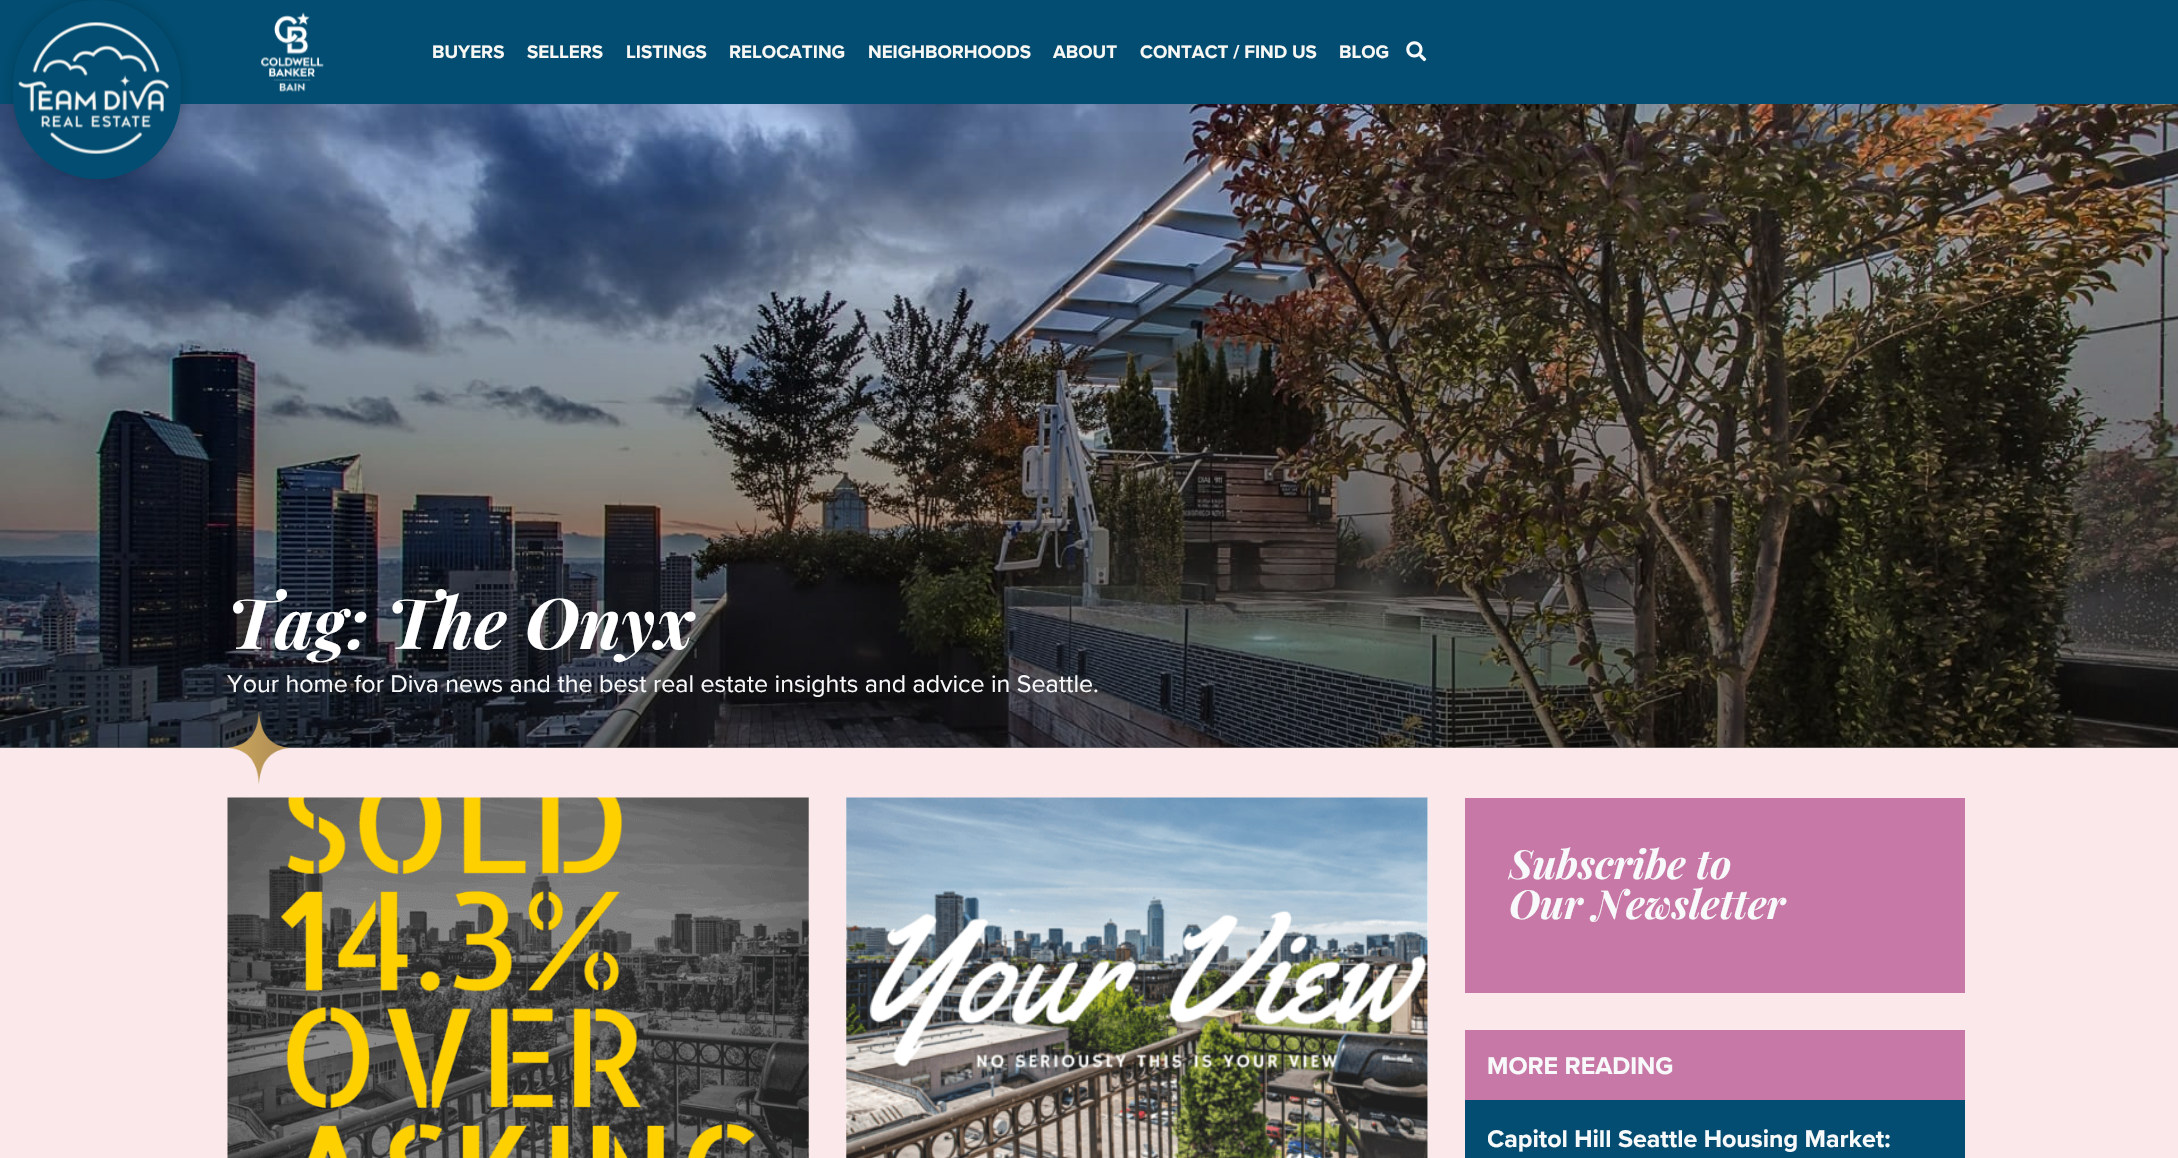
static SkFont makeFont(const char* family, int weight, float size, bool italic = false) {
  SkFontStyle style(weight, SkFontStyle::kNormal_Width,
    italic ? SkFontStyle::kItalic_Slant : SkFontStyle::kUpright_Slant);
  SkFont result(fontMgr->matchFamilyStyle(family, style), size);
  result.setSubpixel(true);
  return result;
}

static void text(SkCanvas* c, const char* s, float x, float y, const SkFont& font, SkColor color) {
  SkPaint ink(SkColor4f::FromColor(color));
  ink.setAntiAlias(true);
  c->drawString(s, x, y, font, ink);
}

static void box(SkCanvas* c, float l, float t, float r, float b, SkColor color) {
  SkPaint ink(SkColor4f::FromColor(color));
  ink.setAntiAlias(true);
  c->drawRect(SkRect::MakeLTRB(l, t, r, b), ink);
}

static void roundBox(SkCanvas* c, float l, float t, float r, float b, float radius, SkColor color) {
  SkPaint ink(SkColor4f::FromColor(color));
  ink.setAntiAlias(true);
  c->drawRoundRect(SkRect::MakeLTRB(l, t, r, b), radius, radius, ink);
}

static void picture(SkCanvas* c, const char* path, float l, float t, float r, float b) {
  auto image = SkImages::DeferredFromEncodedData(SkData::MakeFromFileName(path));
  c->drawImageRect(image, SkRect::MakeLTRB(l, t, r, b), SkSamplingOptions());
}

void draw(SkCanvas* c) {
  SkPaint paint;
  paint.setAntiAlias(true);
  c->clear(0xfff9f8f4);
  box(c, 0, 0, 2178, 104, 0xff024d71);
  picture(c, "img_04.png", 0, 104, 2178, 748);
  {
    const SkColor colors[] = {0x00000000, 0x80000000};
    const float stops[] = {0, 1};
    const SkPoint ends[] = {{1089, 104}, {1089, 748}};
    paint.setShader(SkGradientShader::MakeLinear(ends, colors, stops, 2, SkTileMode::kClamp));
    paint.setAlpha(255);
  }
  c->drawRect(SkRect::MakeLTRB(0, 132, 2178, 748), paint);
  paint.setShader(nullptr);
  paint.setColor(0x33000000);
  paint.setMaskFilter(SkMaskFilter::MakeBlur(kNormal_SkBlurStyle, 6));
  c->drawRoundRect(SkRect::MakeLTRB(13, 0, 181, 179), 84, 84, paint);
  paint.setMaskFilter(nullptr);
  roundBox(c, 13, 0, 181, 179, 84, 0xff024d71);
  picture(c, "img_01.png", 18, 22, 169, 154);
  picture(c, "img_02.png", 261, 12, 324, 92);
  SkFont face1 = makeFont("Proxima Nova", 700, 18.75f);
  text(c, "BUYERS", 432, 58, face1, 0xfff9f8f4);
  text(c, "SELLERS", 527, 58, face1, 0xfff9f8f4);
  text(c, "LISTINGS", 626, 58, face1, 0xfff9f8f4);
  text(c, "RELOCATING", 729, 58, face1, 0xfff9f8f4);
  text(c, "NEIGHBORHOODS", 868, 58, face1, 0xfff9f8f4);
  text(c, "ABOUT", 1053, 58, face1, 0xfff9f8f4);
  text(c, "CONTACT / FIND US", 1140, 58, face1, 0xfff9f8f4);
  text(c, "BLOG", 1339, 58, face1, 0xfff9f8f4);
  picture(c, "img_03.png", 1406, 41, 1427, 62);
  SkFont face2 = makeFont("Playfair Display", 700, 70, true);
  text(c, "Tag: The Onyx", 227, 649, face2, 0xffffffff);
  SkFont face3 = makeFont("Proxima Nova", 400, 25);
  text(c, "Your home for Diva news and the best real estate insights and advice in Seattle.", 227, 692, face3, 0xfff8f9fa);
  box(c, 0, 748, 2178, 1158, 0xfffae8eb);
  picture(c, "img_05.png", 227, 711, 289, 784);
  picture(c, "img_06.png", 227, 797, 809, 1158);
  box(c, 846, 798, 1428, 1158, 0xffffffff);
  picture(c, "img_07.png", 846, 797, 1428, 1158);
  box(c, 1465, 798, 1965, 993, 0xffc778a6);
  SkFont face4 = makeFont("Playfair Display", 700, 40, true);
  text(c, "Subscribe to", 1509, 879, face4, 0xfff8f9fa);
  text(c, "Our Newsletter", 1509, 919, face4, 0xfff8f9fa);
  box(c, 1465, 1100, 1965, 1158, 0xff024d71);
  box(c, 1465, 1030, 1965, 1100, 0xffc778a6);
  SkFont face5 = makeFont("Proxima Nova", 700, 25);
  text(c, "MORE READING", 1487, 1074, face5, 0xfff8f9fa);
  c->save();
  c->clipRect(SkRect::MakeLTRB(1488, 1123, 1943, 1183));
  text(c, "Capitol Hill Seattle Housing Market:", 1487, 1147, face5, 0xfff8f9fa);
  c->restore();
}
